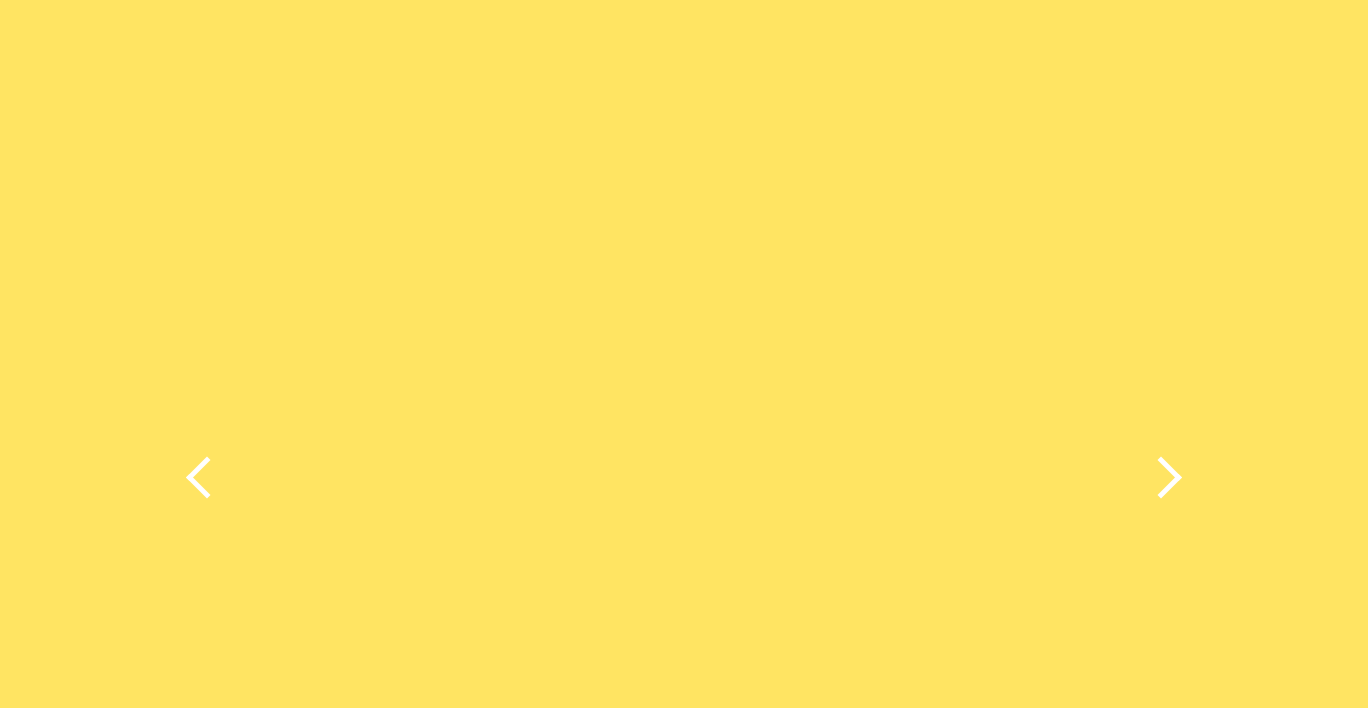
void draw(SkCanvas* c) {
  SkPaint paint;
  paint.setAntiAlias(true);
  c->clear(0xffffe462);
  paint.setColor(0xffffffff);
  c->drawPath(SkPathBuilder().moveTo(189.5f, 474).lineTo(210.5f, 495).lineTo(207, 498.5f).lineTo(186, 477.5f).close().detach(), paint);
  c->drawPath(SkPathBuilder().moveTo(207, 456.5f).lineTo(210.5f, 460).lineTo(189.5f, 481).lineTo(186, 477.5f).close().detach(), paint);
  c->drawPath(SkPathBuilder().moveTo(1161, 456.5f).lineTo(1182, 477.5f).lineTo(1178.5f, 481).lineTo(1157.5f, 460).close().detach(), paint);
  c->drawPath(SkPathBuilder().moveTo(1178.5f, 474).lineTo(1182, 477.5f).lineTo(1161, 498.5f).lineTo(1157.5f, 495).close().detach(), paint);
}
